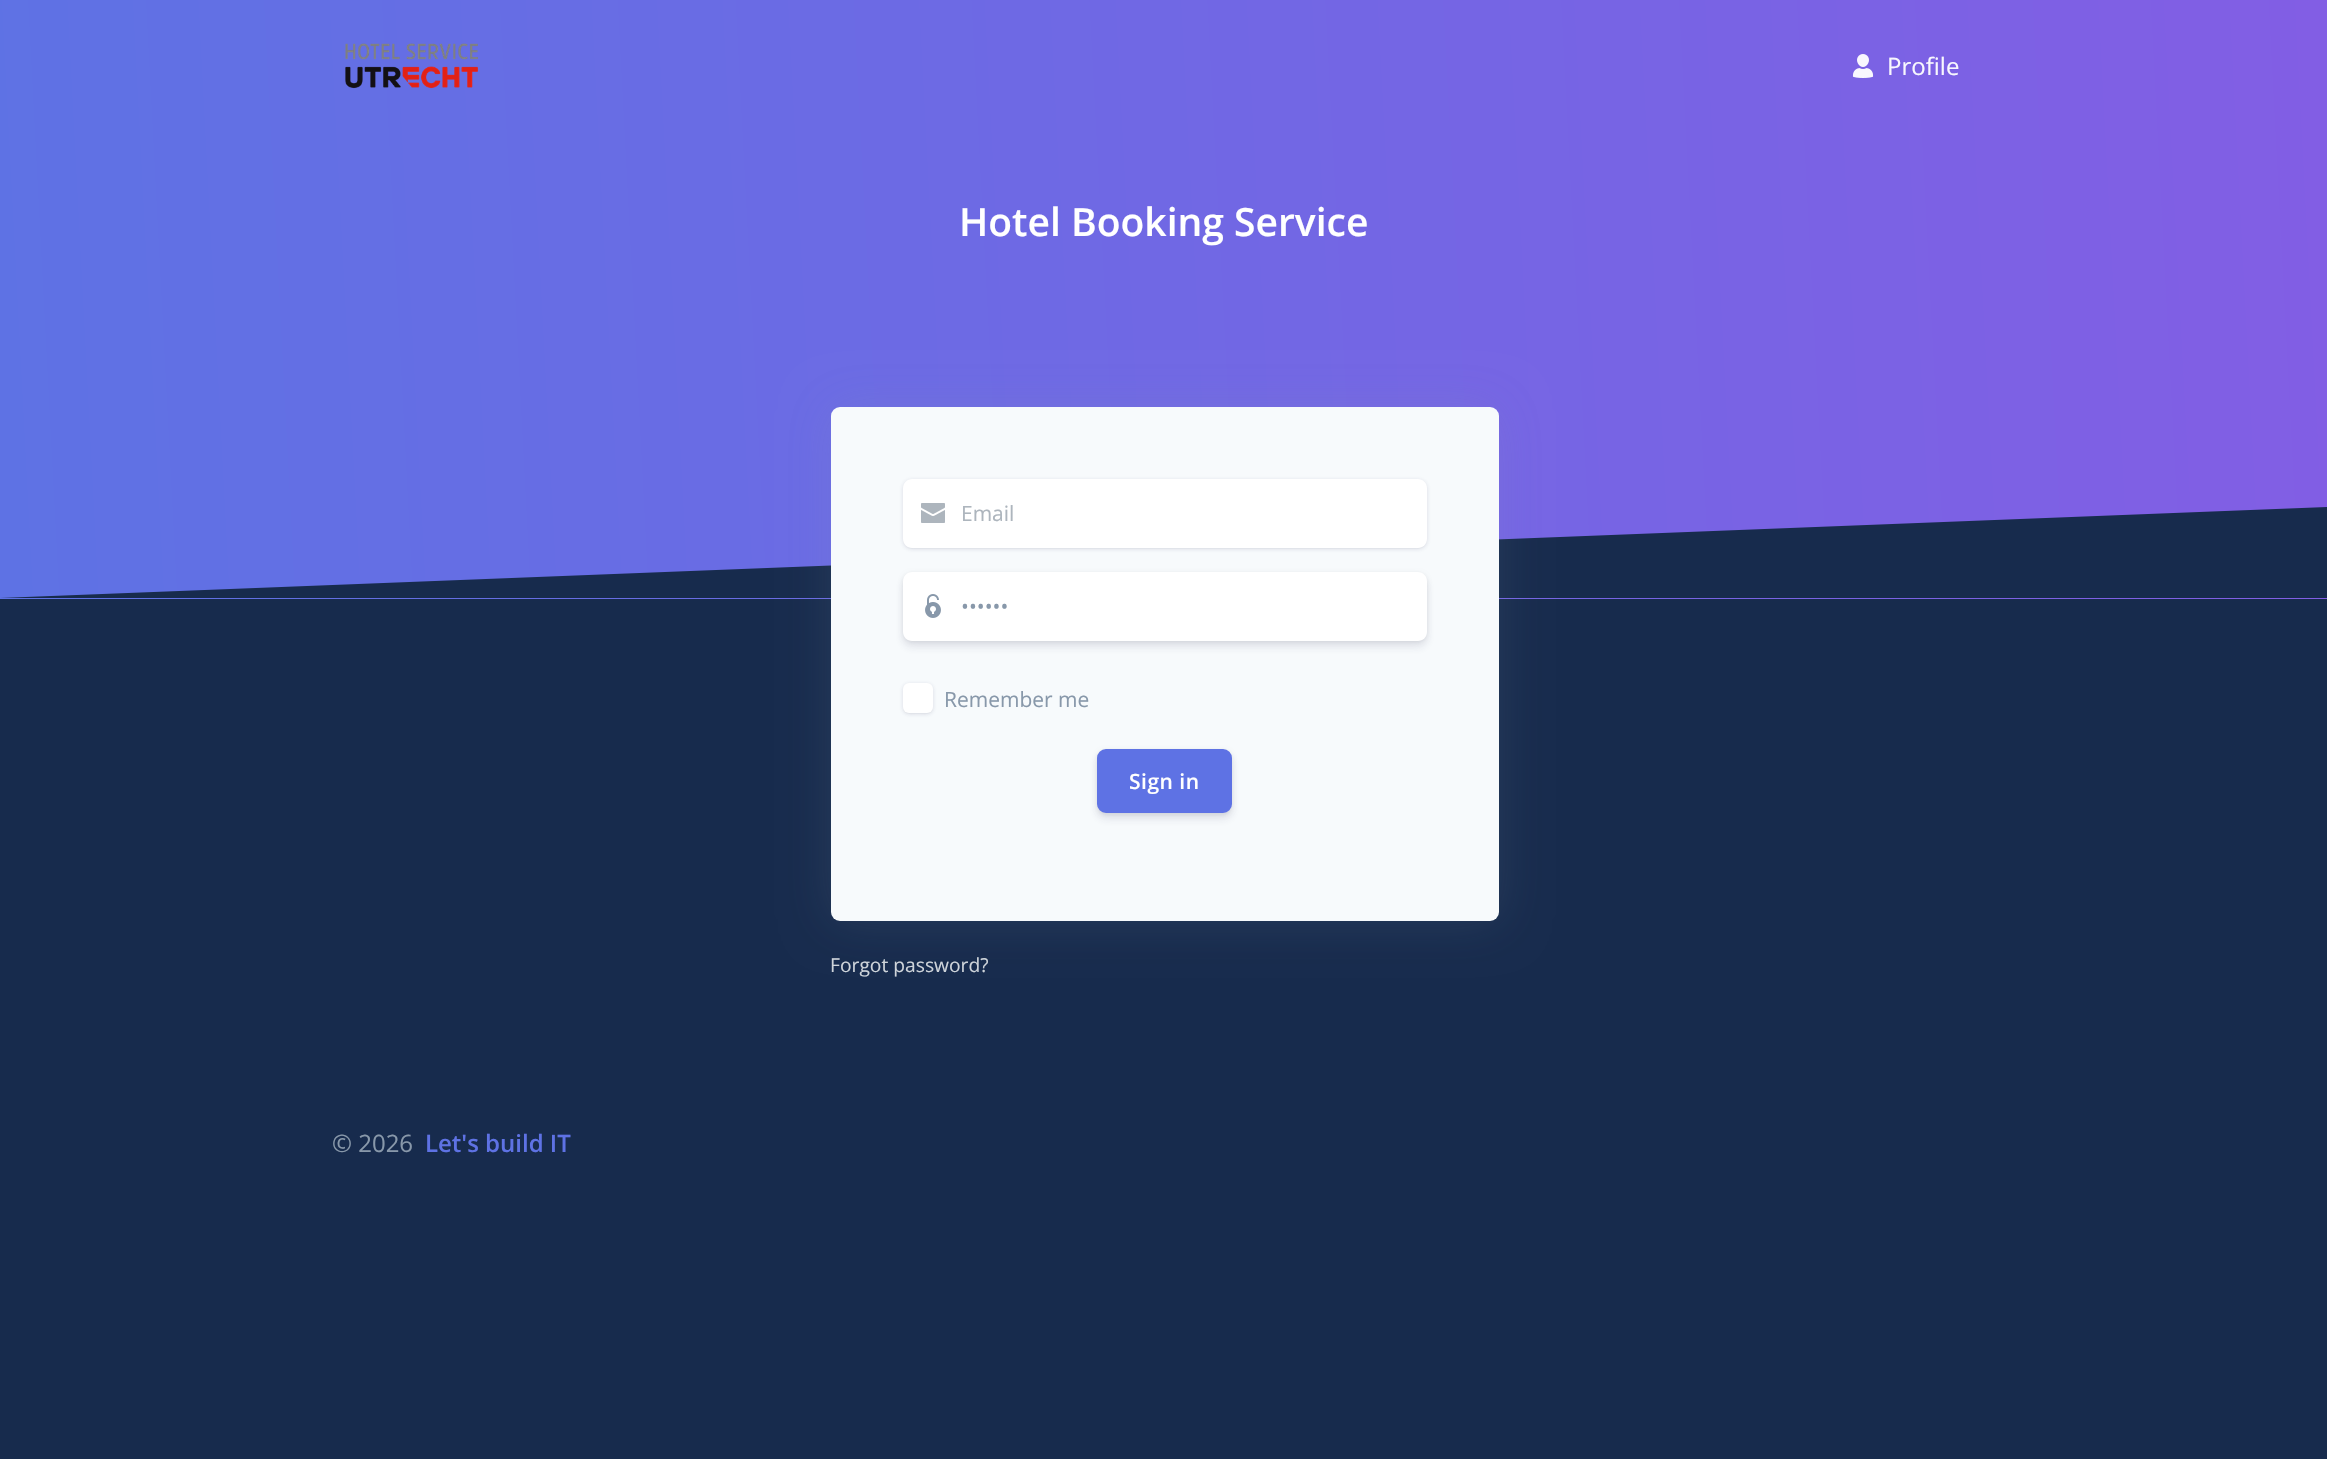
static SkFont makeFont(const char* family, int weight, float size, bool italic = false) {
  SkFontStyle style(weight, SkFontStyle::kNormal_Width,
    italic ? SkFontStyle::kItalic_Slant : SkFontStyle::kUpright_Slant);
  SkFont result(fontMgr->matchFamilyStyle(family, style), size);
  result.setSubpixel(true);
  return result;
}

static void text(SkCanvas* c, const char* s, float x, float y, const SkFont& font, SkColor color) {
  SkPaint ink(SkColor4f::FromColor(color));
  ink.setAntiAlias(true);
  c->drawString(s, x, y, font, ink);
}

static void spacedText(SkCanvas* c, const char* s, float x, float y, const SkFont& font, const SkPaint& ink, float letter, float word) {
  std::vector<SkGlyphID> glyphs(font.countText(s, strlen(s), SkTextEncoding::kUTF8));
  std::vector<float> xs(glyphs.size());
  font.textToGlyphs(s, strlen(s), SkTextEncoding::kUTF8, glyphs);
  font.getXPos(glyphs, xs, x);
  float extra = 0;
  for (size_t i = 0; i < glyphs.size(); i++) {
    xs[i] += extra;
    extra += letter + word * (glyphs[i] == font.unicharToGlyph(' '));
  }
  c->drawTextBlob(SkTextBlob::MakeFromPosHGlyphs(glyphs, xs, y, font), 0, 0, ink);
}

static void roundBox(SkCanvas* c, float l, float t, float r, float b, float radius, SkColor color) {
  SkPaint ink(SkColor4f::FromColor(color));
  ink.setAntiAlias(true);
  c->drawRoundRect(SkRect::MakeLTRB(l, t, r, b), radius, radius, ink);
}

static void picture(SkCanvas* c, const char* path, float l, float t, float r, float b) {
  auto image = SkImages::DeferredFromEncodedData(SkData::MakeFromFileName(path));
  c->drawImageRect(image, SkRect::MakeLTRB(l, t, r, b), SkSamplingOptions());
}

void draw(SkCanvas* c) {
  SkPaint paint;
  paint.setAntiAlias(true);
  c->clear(0xff172b4d);
  {
    const SkColor colors[] = {0xff5e72e4, 0xff825ee4};
    const float stops[] = {0, 1};
    const SkPoint ends[] = {{-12, 361}, {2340, 238}};
    paint.setShader(SkGradientShader::MakeLinear(ends, colors, stops, 2, SkTileMode::kClamp));
    paint.setAlpha(255);
  }
  c->drawRect(SkRect::MakeLTRB(0, 0, 2327, 599), paint);
  picture(c, "img_01.png", 345, 43, 478, 89);
  picture(c, "img_02.png", 1852, 54, 1874, 78);
  SkFont face1 = makeFont("Open Sans", 400, 24);
  text(c, "Profile", 1887, 75, face1, 0xfff8f7fe);
  SkFont face2 = makeFont("Open Sans", 600, 39);
  text(c, "Hotel Booking Service", 959, 236, face2, 0xffffffff);
  paint.setShader(nullptr);
  paint.setColor(0xff172b4d);
  c->drawPath(SkPathBuilder().moveTo(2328, 507).lineTo(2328, 598).lineTo(0, 598).close().detach(), paint);
  paint.setColor(0x268898aa);
  paint.setMaskFilter(SkMaskFilter::MakeBlur(kNormal_SkBlurStyle, 24));
  c->drawRoundRect(SkRect::MakeLTRB(831, 407, 1499, 921), 9, 9, paint);
  paint.setMaskFilter(nullptr);
  roundBox(c, 831, 407, 1499, 921, 9, 0xfff7fafc);
  paint.setColor(0xfff2f5f7);
  c->drawPath(SkPathBuilder().moveTo(903, 538).lineTo(903, 540).cubicTo(903, 545, 907, 549, 912, 549).lineTo(1418, 549).cubicTo(1423, 549, 1427, 545, 1427, 540).lineTo(1427, 489).lineTo(1426, 485).lineTo(1426, 538).cubicTo(1426, 543, 1422, 548, 1418, 548).lineTo(912, 548).cubicTo(907, 548, 903, 543, 903, 538).close().detach(), paint);
  paint.setColor(0x2632325d);
  paint.setMaskFilter(SkMaskFilter::MakeBlur(kNormal_SkBlurStyle, 2));
  c->drawRoundRect(SkRect::MakeLTRB(903, 480, 1427, 549), 9, 9, paint);
  paint.setMaskFilter(nullptr);
  paint.setColor(0xffffffff);
  c->drawPath(SkPathBuilder().moveTo(912, 479).lineTo(963, 479).lineTo(963, 548).lineTo(912, 548).cubicTo(907, 548, 903, 544, 903, 539).lineTo(903, 488).cubicTo(903, 483, 907, 479, 912, 479).close().detach(), paint);
  picture(c, "img_03.png", 921, 503, 945, 523);
  c->drawPath(SkPathBuilder().moveTo(962, 479).lineTo(1418, 479).cubicTo(1423, 479, 1427, 483, 1427, 488).lineTo(1427, 539).cubicTo(1427, 544, 1423, 548, 1418, 548).lineTo(962, 548).close().detach(), paint);
  SkFont face3 = makeFont("Open Sans", 400, 21);
  text(c, "Email", 961, 521, face3, 0xffadb5bd);
  paint.setColor(0x14000000);
  paint.setMaskFilter(SkMaskFilter::MakeBlur(kNormal_SkBlurStyle, 2));
  c->drawRoundRect(SkRect::MakeLTRB(903, 573, 1427, 642), 9, 9, paint);
  paint.setMaskFilter(nullptr);
  paint.setColor(0x1c32325d);
  paint.setMaskFilter(SkMaskFilter::MakeBlur(kNormal_SkBlurStyle, 4.5f));
  c->drawRoundRect(SkRect::MakeLTRB(903, 578, 1427, 647), 9, 9, paint);
  paint.setMaskFilter(nullptr);
  paint.setColor(0xffffffff);
  c->drawPath(SkPathBuilder().moveTo(912, 572).lineTo(963, 572).lineTo(963, 641).lineTo(912, 641).cubicTo(907, 641, 903, 637, 903, 632).lineTo(903, 581).cubicTo(903, 576, 907, 572, 912, 572).close().detach(), paint);
  picture(c, "img_04.png", 925, 594, 941, 618);
  c->drawPath(SkPathBuilder().moveTo(962, 572).lineTo(1418, 572).cubicTo(1423, 572, 1427, 576, 1427, 581).lineTo(1427, 632).cubicTo(1427, 637, 1423, 641, 1418, 641).lineTo(962, 641).close().detach(), paint);
  text(c, "••••••", 961, 614, face3, 0xff8898aa);
  paint.setColor(0xfff2f5f7);
  c->drawPath(SkPathBuilder().moveTo(903, 706.5f).cubicTo(903, 716, 911, 714, 918, 714).cubicTo(925, 714, 933, 716, 933, 706.5f).cubicTo(933, 714.5f, 923, 712.5f, 918, 712.5f).cubicTo(913, 712.5f, 903, 714.5f, 903, 706.5f).close().detach(), paint);
  paint.setColor(0x2632325d);
  paint.setMaskFilter(SkMaskFilter::MakeBlur(kNormal_SkBlurStyle, 2));
  c->drawRoundRect(SkRect::MakeLTRB(903, 684, 933, 714), 6, 6, paint);
  paint.setMaskFilter(nullptr);
  roundBox(c, 903, 683, 933, 713, 6, 0xffffffff);
  text(c, "Remember me", 944, 707, face3, 0xff8898aa);
  paint.setColor(0x14000000);
  paint.setMaskFilter(SkMaskFilter::MakeBlur(kNormal_SkBlurStyle, 2));
  c->drawRoundRect(SkRect::MakeLTRB(1097, 750, 1232, 815), 9, 9, paint);
  paint.setMaskFilter(nullptr);
  paint.setColor(0x1c32325d);
  paint.setMaskFilter(SkMaskFilter::MakeBlur(kNormal_SkBlurStyle, 4.5f));
  c->drawRoundRect(SkRect::MakeLTRB(1097, 755, 1232, 819), 9, 9, paint);
  paint.setMaskFilter(nullptr);
  paint.setColor(0xff5e72e4);
  c->drawRoundRect(SkRect::MakeLTRB(1098, 750, 1231, 812), 8, 8, paint);
  paint.setStyle(SkPaint::kStroke_Style);
  paint.setStrokeWidth(2);
  c->drawRoundRect(SkRect::MakeLTRB(1098, 750, 1231, 812), 8, 8, paint);
  SkFont face4 = makeFont("Open Sans", 600, 21);
  paint.setStyle(SkPaint::kFill_Style);
  paint.setColor(0xffffffff);
  spacedText(c, "Sign in", 1129, 789, face4, paint, 0.5f, 0);
  SkFont face5 = makeFont("Open Sans", 400, 19.25f);
  text(c, "Forgot password?", 830, 972, face5, 0xffced4da);
  text(c, "© 2026", 332, 1152, face1, 0xff8898aa);
  SkFont face6 = makeFont("Open Sans", 600, 24);
  text(c, "Let's build IT", 425, 1152, face6, 0xff5e72e4);
}
